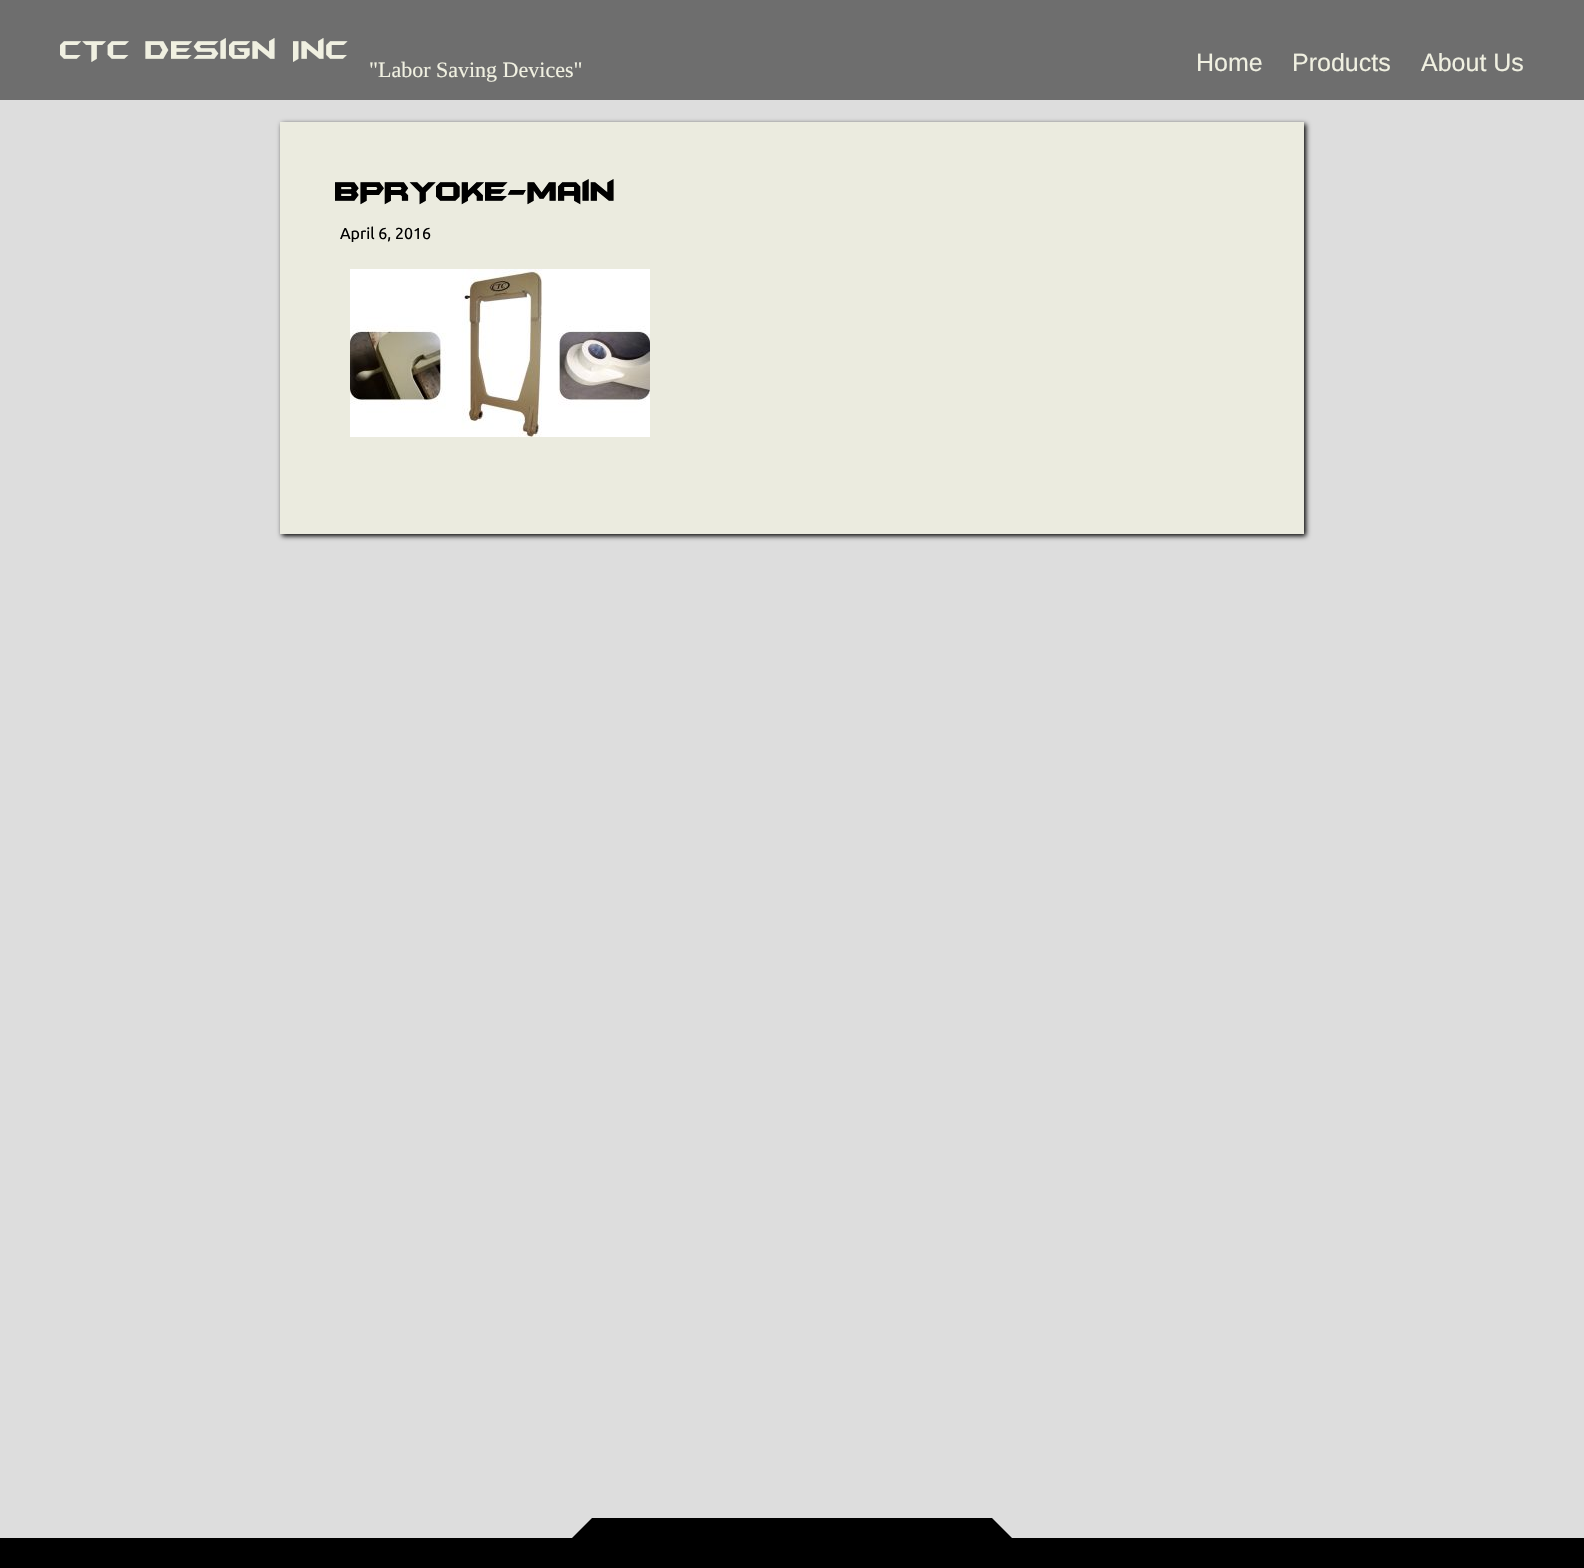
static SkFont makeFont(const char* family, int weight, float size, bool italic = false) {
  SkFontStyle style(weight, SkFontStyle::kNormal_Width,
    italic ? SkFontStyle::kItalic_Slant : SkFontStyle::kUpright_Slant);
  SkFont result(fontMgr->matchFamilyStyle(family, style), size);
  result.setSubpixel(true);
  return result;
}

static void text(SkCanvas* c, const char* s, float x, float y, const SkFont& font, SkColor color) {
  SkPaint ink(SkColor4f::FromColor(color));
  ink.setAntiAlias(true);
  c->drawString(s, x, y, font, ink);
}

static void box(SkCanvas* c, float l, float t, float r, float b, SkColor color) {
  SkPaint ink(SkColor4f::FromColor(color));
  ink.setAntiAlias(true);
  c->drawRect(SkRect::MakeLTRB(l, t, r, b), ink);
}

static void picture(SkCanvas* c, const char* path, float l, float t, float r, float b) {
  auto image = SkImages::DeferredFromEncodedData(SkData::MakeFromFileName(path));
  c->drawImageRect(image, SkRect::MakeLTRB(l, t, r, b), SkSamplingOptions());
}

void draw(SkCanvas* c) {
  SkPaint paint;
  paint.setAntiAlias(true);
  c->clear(0xffdddddd);
  box(c, 0, 0, 1584, 100, 0xff6e6e6e);
  SkFont face1 = makeFont("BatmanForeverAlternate", 400, 30);
  text(c, "CTC Design Inc", 60, 59, face1, 0xfff0f0e1);
  SkFont face2 = makeFont("Liberation Serif", 400, 22);
  text(c, "\"Labor Saving Devices\"", 369, 77, face2, 0xfff0f0e1);
  SkFont face3 = makeFont("Liberation Sans", 400, 25);
  text(c, "Home", 1196, 71, face3, 0xfff0f0e1);
  text(c, "Products", 1292, 71, face3, 0xfff0f0e1);
  text(c, "About Us", 1421, 71, face3, 0xfff0f0e1);
  paint.setColor(0xff000000);
  paint.setMaskFilter(SkMaskFilter::MakeBlur(kNormal_SkBlurStyle, 2.5f));
  c->drawRect(SkRect::MakeLTRB(282, 124, 1306, 536), paint);
  paint.setMaskFilter(nullptr);
  box(c, 280, 122, 1304, 534, 0xffebebdf);
  SkFont face4 = makeFont("BatmanForeverAlternate", 700, 30);
  text(c, "BPRYOKE-Main", 335, 201, face4, 0xff000000);
  SkFont face5 = makeFont("Ubuntu", 400, 16);
  text(c, "April 6, 2016", 340, 239, face5, 0xff000000);
  picture(c, "img_01.png", 350, 269, 650, 437);
  c->drawPath(SkPathBuilder().moveTo(1012, 1538).lineTo(572, 1538).lineTo(592, 1518).lineTo(992, 1518).close().detach(), paint);
  box(c, 0, 1538, 1584, 1568, 0xff000000);
}
